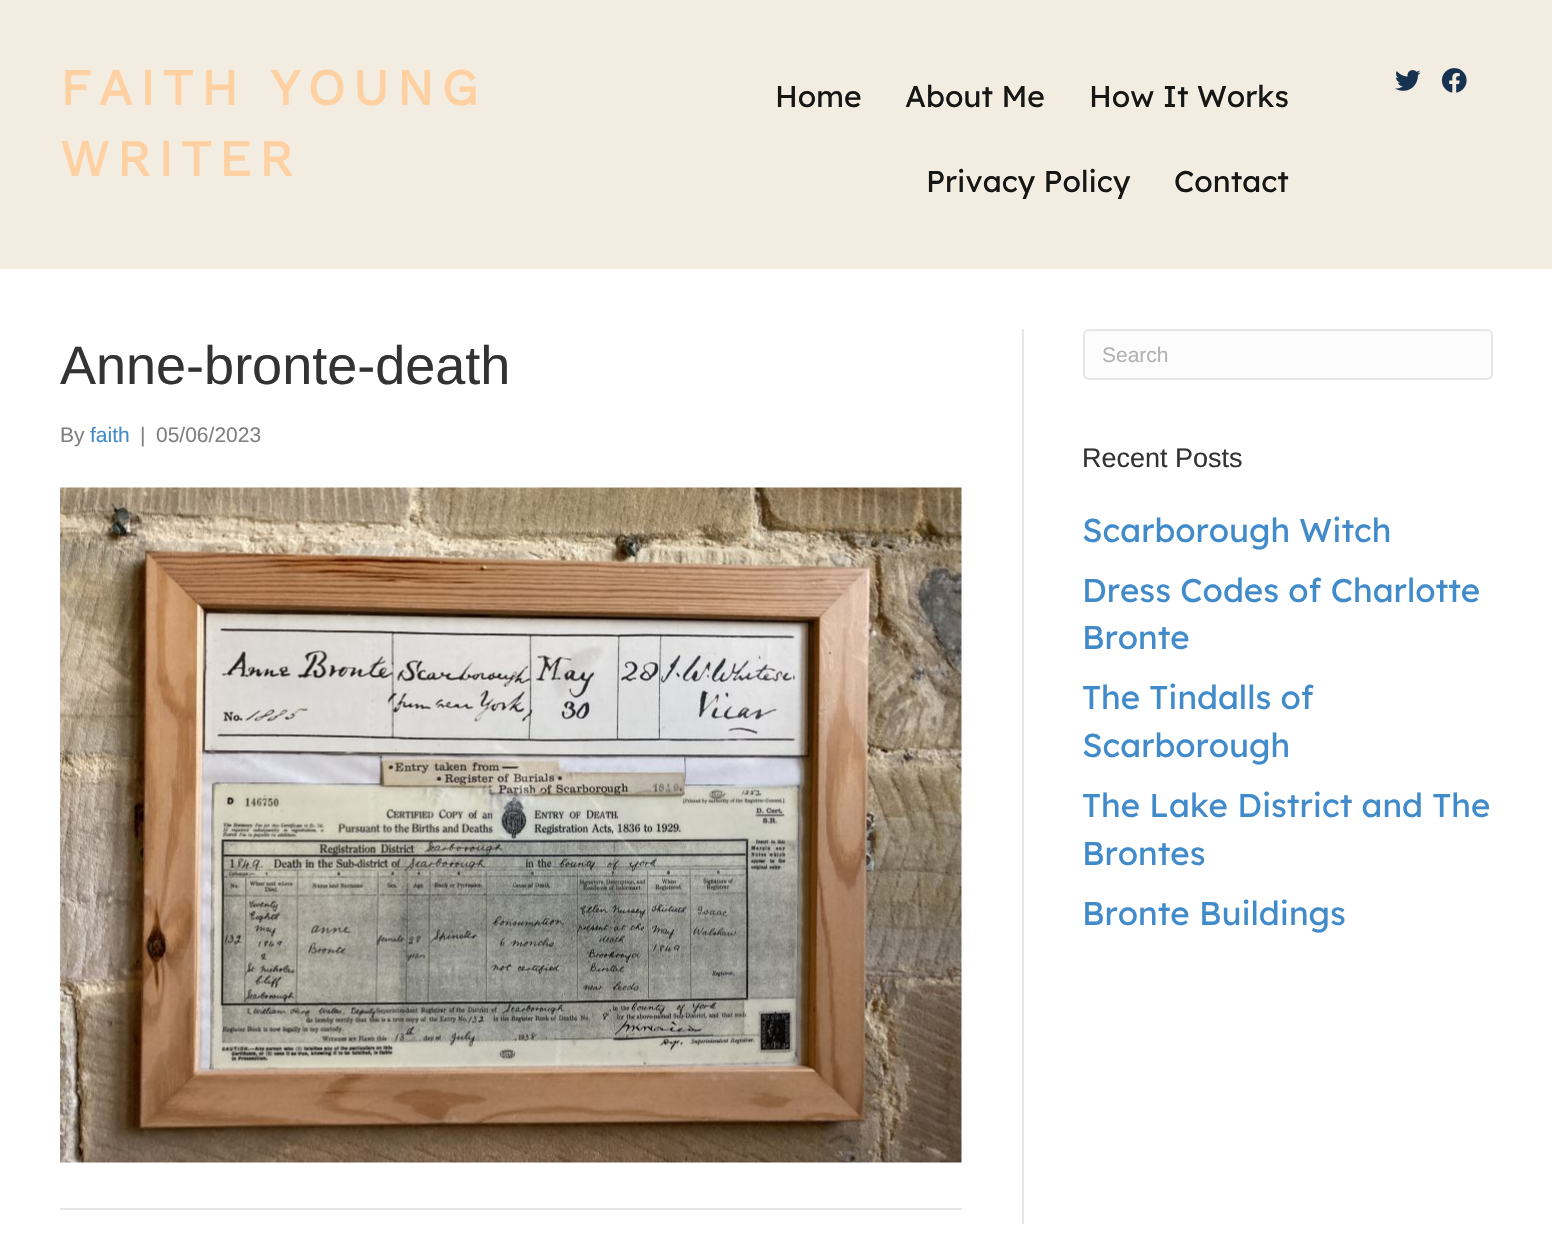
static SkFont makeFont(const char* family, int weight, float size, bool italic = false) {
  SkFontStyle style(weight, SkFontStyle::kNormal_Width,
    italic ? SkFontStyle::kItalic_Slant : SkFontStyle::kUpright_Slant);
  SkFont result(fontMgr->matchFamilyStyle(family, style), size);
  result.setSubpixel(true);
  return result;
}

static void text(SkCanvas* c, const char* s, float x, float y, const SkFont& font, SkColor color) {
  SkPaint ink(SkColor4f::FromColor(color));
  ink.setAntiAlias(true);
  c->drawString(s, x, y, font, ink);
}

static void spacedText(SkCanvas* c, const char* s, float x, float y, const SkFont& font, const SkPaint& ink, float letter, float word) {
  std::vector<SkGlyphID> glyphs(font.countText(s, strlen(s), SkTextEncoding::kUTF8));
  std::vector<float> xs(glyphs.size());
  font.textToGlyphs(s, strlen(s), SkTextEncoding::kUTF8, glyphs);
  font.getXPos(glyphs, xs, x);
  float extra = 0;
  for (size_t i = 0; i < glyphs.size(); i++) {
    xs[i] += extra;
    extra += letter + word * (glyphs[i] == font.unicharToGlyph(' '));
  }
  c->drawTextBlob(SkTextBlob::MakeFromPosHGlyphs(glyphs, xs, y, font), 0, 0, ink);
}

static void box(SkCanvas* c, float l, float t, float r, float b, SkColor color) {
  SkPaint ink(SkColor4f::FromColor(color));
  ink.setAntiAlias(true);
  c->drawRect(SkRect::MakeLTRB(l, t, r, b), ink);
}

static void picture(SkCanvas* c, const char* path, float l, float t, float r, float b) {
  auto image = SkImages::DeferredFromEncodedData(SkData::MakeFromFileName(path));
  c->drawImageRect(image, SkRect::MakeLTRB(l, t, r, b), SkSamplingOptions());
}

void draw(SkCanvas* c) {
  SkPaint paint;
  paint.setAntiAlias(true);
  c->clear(0xffffffff);
  box(c, 0, 0, 1552, 269, 0xfff3ece1);
  SkFont face1 = makeFont("Work Sans", 700, 51);
  paint.setColor(0xffffd1a2);
  spacedText(c, "FAITH YOUNG", 60, 105, face1, paint, 7.5f, 0);
  spacedText(c, "WRITER", 60, 176, face1, paint, 7.5f, 0);
  SkFont face2 = makeFont("Lexend Deca", 400, 30);
  text(c, "Home", 775, 107, face2, 0xff161615);
  text(c, "About Me", 905, 107, face2, 0xff161615);
  text(c, "How It Works", 1089, 107, face2, 0xff161615);
  text(c, "Privacy Policy", 926, 192, face2, 0xff161615);
  text(c, "Contact", 1174, 192, face2, 0xff161615);
  picture(c, "img_01.png", 1395, 70, 1421, 91);
  picture(c, "img_02.png", 1441, 68, 1467, 93);
  box(c, 1022, 329, 1024, 1224, 0xffe6e6e6);
  SkFont face3 = makeFont("Liberation Sans", 400, 54);
  text(c, "Anne-bronte-death", 60, 384, face3, 0xff333333);
  SkFont face4 = makeFont("Liberation Sans", 400, 21);
  text(c, "By", 60, 442, face4, 0xff808080);
  text(c, "faith", 90, 442, face4, 0xff428bca);
  text(c, "|", 140, 442, face4, 0xff808080);
  text(c, "05/06/2023", 156, 442, face4, 0xff808080);
  picture(c, "img_03.png", 60, 487, 962, 1163);
  box(c, 60, 1208, 962, 1210, 0xffe6e6e6);
  paint.setColor(0xfffcfcfc);
  c->drawRoundRect(SkRect::MakeLTRB(1084, 330, 1492, 379), 5, 5, paint);
  paint.setStyle(SkPaint::kStroke_Style);
  paint.setStrokeWidth(2);
  paint.setColor(0xffe6e6e6);
  c->drawRoundRect(SkRect::MakeLTRB(1084, 330, 1492, 379), 5, 5, paint);
  text(c, "Search", 1102, 362, face4, 0xffb2b2b2);
  SkFont face5 = makeFont("Liberation Sans", 400, 27);
  text(c, "Recent Posts", 1082, 467, face5, 0xff333333);
  SkFont face6 = makeFont("Lexend Deca", 400, 33);
  text(c, "Scarborough Witch", 1082, 542, face6, 0xff428bca);
  text(c, "Dress Codes of Charlotte", 1082, 602, face6, 0xff428bca);
  text(c, "Bronte", 1082, 649, face6, 0xff428bca);
  text(c, "The Tindalls of", 1082, 709, face6, 0xff428bca);
  text(c, "Scarborough", 1082, 757, face6, 0xff428bca);
  text(c, "The Lake District and The", 1082, 817, face6, 0xff428bca);
  text(c, "Brontes", 1082, 865, face6, 0xff428bca);
  text(c, "Bronte Buildings", 1082, 925, face6, 0xff428bca);
}
